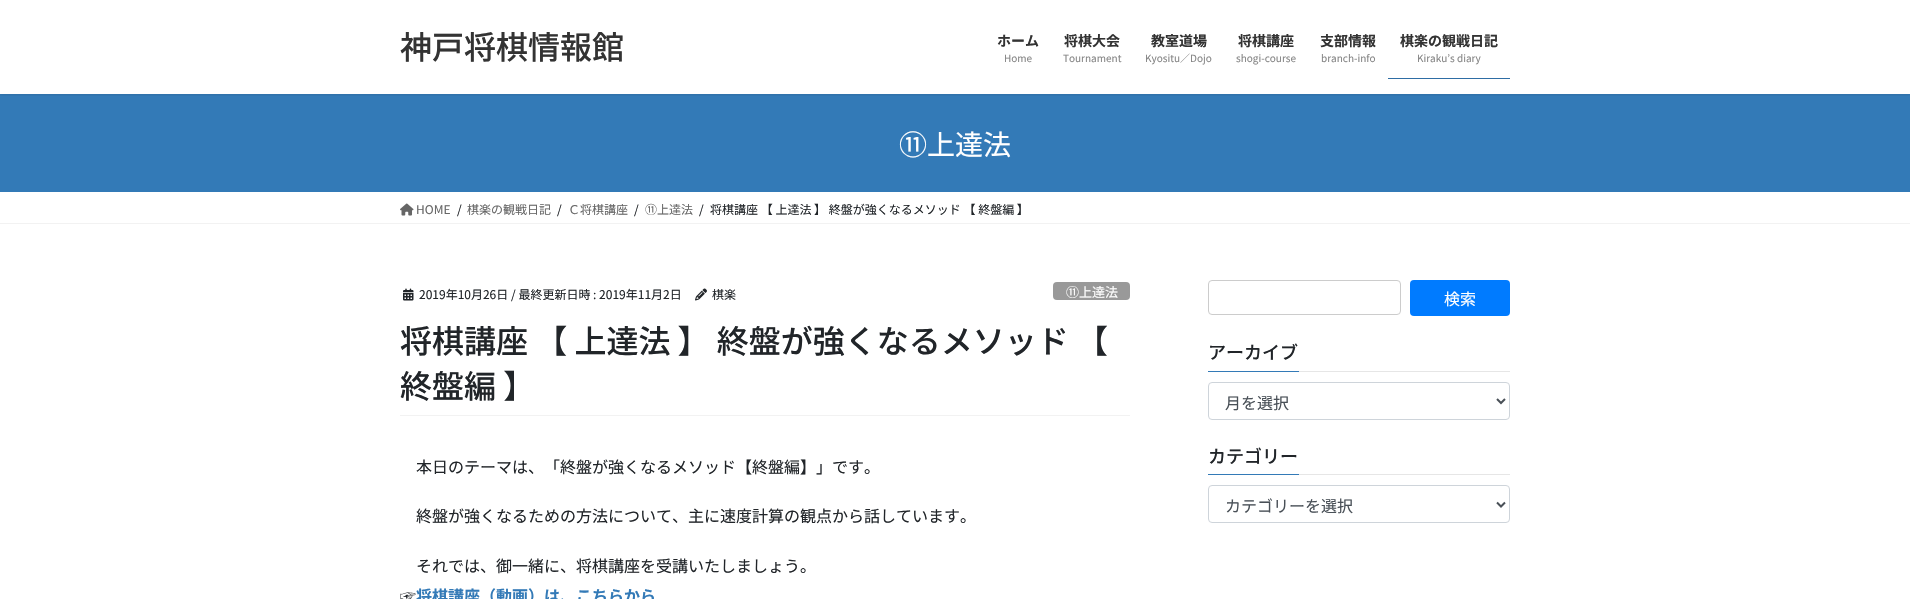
static SkFont makeFont(const char* family, int weight, float size, bool italic = false) {
  SkFontStyle style(weight, SkFontStyle::kNormal_Width,
    italic ? SkFontStyle::kItalic_Slant : SkFontStyle::kUpright_Slant);
  SkFont result(fontMgr->matchFamilyStyle(family, style), size);
  result.setSubpixel(true);
  return result;
}

static void text(SkCanvas* c, const char* s, float x, float y, const SkFont& font, SkColor color) {
  SkPaint ink(SkColor4f::FromColor(color));
  ink.setAntiAlias(true);
  c->drawString(s, x, y, font, ink);
}

static void box(SkCanvas* c, float l, float t, float r, float b, SkColor color) {
  SkPaint ink(SkColor4f::FromColor(color));
  ink.setAntiAlias(true);
  c->drawRect(SkRect::MakeLTRB(l, t, r, b), ink);
}

static void roundBox(SkCanvas* c, float l, float t, float r, float b, float radius, SkColor color) {
  SkPaint ink(SkColor4f::FromColor(color));
  ink.setAntiAlias(true);
  c->drawRoundRect(SkRect::MakeLTRB(l, t, r, b), radius, radius, ink);
}

static void picture(SkCanvas* c, const char* path, float l, float t, float r, float b) {
  auto image = SkImages::DeferredFromEncodedData(SkData::MakeFromFileName(path));
  c->drawImageRect(image, SkRect::MakeLTRB(l, t, r, b), SkSamplingOptions());
}

void draw(SkCanvas* c) {
  SkPaint paint;
  paint.setAntiAlias(true);
  c->clear(0xffffffff);
  box(c, 0, 94, 1910, 192, 0xff337ab7);
  c->save();
  c->clipRect(SkRect::MakeLTRB(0, 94, 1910, 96));
  paint.setColor(0x1a000000);
  paint.setMaskFilter(SkMaskFilter::MakeBlur(kNormal_SkBlurStyle, 1.5f));
  c->drawRect(SkRect::MakeLTRB(0, 1, 1910, 95), paint);
  paint.setMaskFilter(nullptr);
  c->restore();
  SkFont face1 = makeFont("Noto Sans JP", 500, 32);
  text(c, "神戸将棋情報館", 400, 59, face1, 0xff333333);
  SkFont face2 = makeFont("Noto Sans JP", 700, 14);
  text(c, "ホーム", 997, 46, face2, 0xff333333);
  SkFont face3 = makeFont("Noto Sans JP", 400, 10);
  text(c, "Home", 1004, 62, face3, 0xff858585);
  text(c, "将棋大会", 1064, 46, face2, 0xff333333);
  text(c, "Tournament", 1063, 62, face3, 0xff858585);
  text(c, "教室道場", 1151, 46, face2, 0xff333333);
  text(c, "Kyositu／Dojo", 1145, 62, face3, 0xff858585);
  text(c, "将棋講座", 1238, 46, face2, 0xff333333);
  text(c, "shogi-course", 1236, 62, face3, 0xff858585);
  text(c, "支部情報", 1320, 46, face2, 0xff333333);
  text(c, "branch-info", 1321, 62, face3, 0xff858585);
  text(c, "棋楽の観戦日記", 1400, 46, face2, 0xff333333);
  text(c, "Kiraku’s diary", 1417, 62, face3, 0xff858585);
  box(c, 1388, 78, 1510, 79, 0xff2e6da4);
  SkFont face4 = makeFont("Noto Sans JP", 400, 28);
  text(c, "⑪上達法", 899, 155, face4, 0xffffffff);
  box(c, 0, 223, 1910, 224, 0xfff2f2f2);
  picture(c, "img_01.png", 400, 203, 414, 216);
  SkFont face5 = makeFont("Noto Sans JP", 400, 12);
  text(c, "HOME", 416, 214, face5, 0xff666666);
  text(c, "/", 457, 214, face5, 0xff212529);
  text(c, "棋楽の観戦日記", 467, 214, face5, 0xff666666);
  text(c, "/", 557, 214, face5, 0xff212529);
  text(c, "Ｃ将棋講座", 568, 214, face5, 0xff666666);
  text(c, "/", 634, 214, face5, 0xff212529);
  text(c, "⑪上達法", 645, 214, face5, 0xff666666);
  text(c, "/", 699, 214, face5, 0xff212529);
  text(c, "将棋講座 【 上達法 】 終盤が強くなるメソッド 【 終盤編 】", 710, 214, face5, 0xff212529);
  box(c, 400, 415, 1130, 416, 0xfff2f2f2);
  picture(c, "img_02.png", 403, 288, 414, 301);
  text(c, "2019年10月26日", 419, 299, face5, 0xff212529);
  text(c, "/ 最終更新日時 : 2019年11月2日", 511, 299, face5, 0xff212529);
  picture(c, "img_03.png", 695, 288, 707, 301);
  text(c, "棋楽", 712, 299, face5, 0xff212529);
  roundBox(c, 1053, 282, 1130, 300, 4, 0xff999999);
  SkFont face6 = makeFont("Noto Sans JP", 400, 13);
  text(c, "⑪上達法", 1066, 297, face6, 0xffffffff);
  text(c, "将棋講座 【 上達法 】 終盤が強くなるメソッド 【", 400, 353, face1, 0xff212529);
  text(c, "終盤編 】", 400, 398, face1, 0xff212529);
  SkFont face7 = makeFont("Noto Sans JP", 400, 16);
  text(c, "本日のテーマは、「終盤が強くなるメソッド【終盤編】」です。", 416, 473, face7, 0xff212529);
  text(c, "終盤が強くなるための方法について、主に速度計算の観点から話しています。", 416, 522, face7, 0xff212529);
  text(c, "それでは、御一緒に、将棋講座を受講いたしましょう。", 416, 572, face7, 0xff212529);
  text(c, "☞", 400, 602, face7, 0xff212529);
  SkFont face8 = makeFont("Noto Sans JP", 700, 16);
  text(c, "将棋講座（動画）は、こちらから", 416, 602, face8, 0xff337ab7);
  paint.setStyle(SkPaint::kStroke_Style);
  paint.setStrokeWidth(1);
  paint.setColor(0xffcccccc);
  c->drawRoundRect(SkRect::MakeLTRB(1208.5f, 280.5f, 1400.5f, 314.5f), 3.5f, 3.5f, paint);
  roundBox(c, 1410, 280, 1510, 316, 4, 0xff007bff);
  text(c, "検索", 1444, 305, face7, 0xffffffff);
  box(c, 1299, 371, 1510, 372, 0xffe6e6e6);
  SkFont face9 = makeFont("Noto Sans JP", 500, 18);
  text(c, "アーカイブ", 1208, 359, face9, 0xff212529);
  box(c, 1208, 371, 1299, 372, 0xff337ab7);
  paint.setColor(0xffced4da);
  c->drawRoundRect(SkRect::MakeLTRB(1208.5f, 382.5f, 1509.5f, 419.5f), 3.5f, 3.5f, paint);
  paint.setStrokeWidth(2);
  paint.setColor(0xff495057);
  c->drawPath(SkPathBuilder().moveTo(1497, 399).lineTo(1501, 403).lineTo(1505, 399).detach(), paint);
  text(c, "月を選択", 1225, 409, face7, 0xff495057);
  box(c, 1299, 474, 1510, 475, 0xffe6e6e6);
  text(c, "カテゴリー", 1208, 463, face9, 0xff212529);
  box(c, 1208, 474, 1299, 475, 0xff337ab7);
  paint.setStrokeWidth(1);
  paint.setColor(0xffced4da);
  c->drawRoundRect(SkRect::MakeLTRB(1208.5f, 485.5f, 1509.5f, 522.5f), 3.5f, 3.5f, paint);
  paint.setStrokeWidth(2);
  paint.setColor(0xff495057);
  c->drawPath(SkPathBuilder().moveTo(1497, 502.5f).lineTo(1501, 506.5f).lineTo(1505, 502.5f).detach(), paint);
  text(c, "カテゴリーを選択", 1225, 512, face7, 0xff495057);
}
